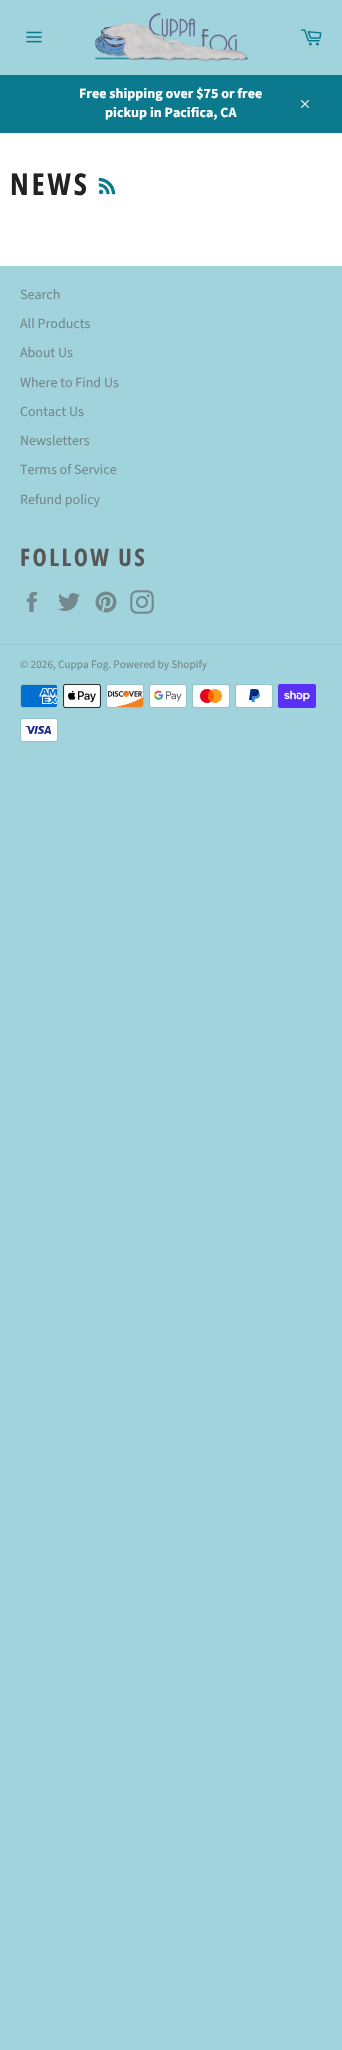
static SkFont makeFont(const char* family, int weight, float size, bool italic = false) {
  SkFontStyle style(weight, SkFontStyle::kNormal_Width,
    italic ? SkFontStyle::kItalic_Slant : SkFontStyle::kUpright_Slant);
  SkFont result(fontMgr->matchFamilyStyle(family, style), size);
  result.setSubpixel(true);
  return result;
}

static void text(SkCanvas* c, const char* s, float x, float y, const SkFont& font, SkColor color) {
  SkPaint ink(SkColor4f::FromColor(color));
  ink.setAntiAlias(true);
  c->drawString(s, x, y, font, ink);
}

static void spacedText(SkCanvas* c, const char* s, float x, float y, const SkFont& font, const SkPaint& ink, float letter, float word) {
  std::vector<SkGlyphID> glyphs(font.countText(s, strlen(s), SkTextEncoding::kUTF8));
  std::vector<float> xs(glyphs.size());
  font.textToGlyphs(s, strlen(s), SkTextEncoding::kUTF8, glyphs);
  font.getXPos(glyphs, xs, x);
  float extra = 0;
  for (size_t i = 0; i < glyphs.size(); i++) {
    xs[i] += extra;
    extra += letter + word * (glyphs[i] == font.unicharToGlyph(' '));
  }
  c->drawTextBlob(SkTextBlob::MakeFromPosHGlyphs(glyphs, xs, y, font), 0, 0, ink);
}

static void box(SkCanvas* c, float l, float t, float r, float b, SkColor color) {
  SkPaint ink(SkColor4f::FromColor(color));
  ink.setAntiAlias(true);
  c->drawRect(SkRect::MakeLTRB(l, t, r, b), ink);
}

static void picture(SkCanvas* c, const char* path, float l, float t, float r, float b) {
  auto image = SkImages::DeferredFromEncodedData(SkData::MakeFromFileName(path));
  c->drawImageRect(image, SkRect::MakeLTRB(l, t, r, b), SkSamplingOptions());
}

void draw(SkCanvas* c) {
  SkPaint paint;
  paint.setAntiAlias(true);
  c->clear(0xffa0d3db);
  box(c, 0, 133, 342, 266, 0xffffffff);
  picture(c, "img_01.png", 26, 31, 42, 43);
  picture(c, "img_02.png", 95, 13, 248, 62);
  picture(c, "img_03.png", 300, 29, 322, 46);
  box(c, 0, 75, 342, 133, 0xff0c7a8e);
  SkFont face1 = makeFont("Source Sans Pro", 700, 14);
  text(c, "Free shipping over $75 or free", 79, 98, face1, 0xffffffff);
  text(c, "pickup in Pacifica, CA", 105, 117, face1, 0xffffffff);
  picture(c, "img_04.png", 301, 100, 309, 108);
  SkFont face2 = makeFont("Open Sans Condensed", 700, 30);
  paint.setColor(0xff222222);
  spacedText(c, "NEWS", 10, 195, face2, paint, 3, 0);
  picture(c, "img_05.png", 98, 177, 116, 195);
  SkFont face3 = makeFont("Source Sans Pro", 400, 14);
  text(c, "Search", 20, 299, face3, 0xff74898c);
  text(c, "All Products", 20, 328, face3, 0xff74898c);
  text(c, "About Us", 20, 357, face3, 0xff74898c);
  text(c, "Where to Find Us", 20, 387, face3, 0xff74898c);
  text(c, "Contact Us", 20, 416, face3, 0xff74898c);
  text(c, "Newsletters", 20, 445, face3, 0xff74898c);
  text(c, "Terms of Service", 20, 474, face3, 0xff74898c);
  text(c, "Refund policy", 20, 504, face3, 0xff74898c);
  SkFont face4 = makeFont("Open Sans Condensed", 700, 24);
  paint.setColor(0xff575757);
  spacedText(c, "FOLLOW US", 20, 566, face4, paint, 2.5f, 0);
  picture(c, "img_06.png", 27, 592, 37, 612);
  picture(c, "img_07.png", 58, 593, 80, 611);
  picture(c, "img_08.png", 95, 591, 117, 613);
  picture(c, "img_09.png", 130, 590, 154, 614);
  box(c, 0, 644, 342, 645, 0xff8ecad4);
  SkFont face5 = makeFont("Source Sans Pro", 400, 11.25f);
  text(c, "© 2026, Cuppa Fog. Powered by Shopify", 20, 668, face5, 0xff74898c);
  picture(c, "img_10.png", 20, 684, 58, 708);
  picture(c, "img_11.png", 63, 684, 101, 708);
  picture(c, "img_12.png", 106, 684, 144, 708);
  picture(c, "img_13.png", 149, 684, 187, 708);
  picture(c, "img_14.png", 192, 684, 230, 708);
  picture(c, "img_15.png", 235, 684, 273, 708);
  picture(c, "img_16.png", 278, 684, 316, 708);
  picture(c, "img_17.png", 20, 718, 58, 742);
}
